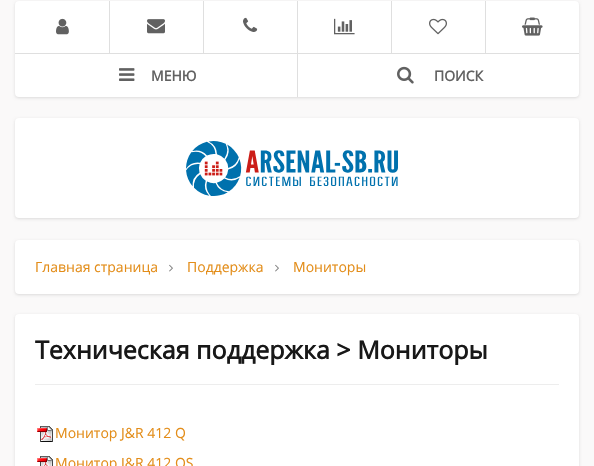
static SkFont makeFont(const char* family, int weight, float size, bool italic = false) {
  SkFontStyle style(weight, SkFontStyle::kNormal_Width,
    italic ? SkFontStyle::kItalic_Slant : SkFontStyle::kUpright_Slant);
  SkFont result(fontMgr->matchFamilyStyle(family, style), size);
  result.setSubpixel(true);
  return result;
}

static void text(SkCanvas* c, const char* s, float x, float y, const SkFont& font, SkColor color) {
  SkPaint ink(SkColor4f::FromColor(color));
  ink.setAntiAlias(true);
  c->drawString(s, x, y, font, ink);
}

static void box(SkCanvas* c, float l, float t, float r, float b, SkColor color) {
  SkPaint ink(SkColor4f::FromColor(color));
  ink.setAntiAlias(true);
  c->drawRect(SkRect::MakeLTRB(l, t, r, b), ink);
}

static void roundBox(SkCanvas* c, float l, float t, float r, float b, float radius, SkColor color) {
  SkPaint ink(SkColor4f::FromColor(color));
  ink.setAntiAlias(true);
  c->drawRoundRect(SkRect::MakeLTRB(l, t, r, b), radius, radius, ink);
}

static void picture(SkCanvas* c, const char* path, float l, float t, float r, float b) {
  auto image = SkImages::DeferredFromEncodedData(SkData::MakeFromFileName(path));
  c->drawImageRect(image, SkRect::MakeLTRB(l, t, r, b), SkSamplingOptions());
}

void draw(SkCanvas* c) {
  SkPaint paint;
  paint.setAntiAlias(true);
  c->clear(0xfffaf9f9);
  paint.setColor(0x1f000000);
  paint.setMaskFilter(SkMaskFilter::MakeBlur(kNormal_SkBlurStyle, 1.5f));
  c->drawRoundRect(SkRect::MakeLTRB(15, 2, 579, 98), 4, 4, paint);
  paint.setMaskFilter(nullptr);
  roundBox(c, 15, 1, 579, 97, 4, 0xffffffff);
  picture(c, "img_01.png", 56, 18, 69, 35);
  box(c, 109, 1, 110, 53, 0xffdfdfdf);
  picture(c, "img_02.png", 147, 19, 165, 34);
  box(c, 203, 1, 204, 53, 0xffdfdfdf);
  picture(c, "img_03.png", 243, 17, 258, 32);
  box(c, 297, 1, 298, 53, 0xffdfdfdf);
  picture(c, "img_04.png", 334, 18, 355, 35);
  box(c, 391, 1, 392, 53, 0xffdfdfdf);
  picture(c, "img_05.png", 429, 18, 447, 35);
  box(c, 485, 1, 486, 53, 0xffdfdfdf);
  picture(c, "img_06.png", 522, 17, 543, 36);
  box(c, 15, 53, 579, 54, 0xffdfdfdf);
  picture(c, "img_07.png", 119, 68, 135, 81);
  SkFont face1 = makeFont("Open Sans", 700, 14);
  text(c, "МЕНЮ", 151, 81, face1, 0xff616161);
  box(c, 297, 54, 298, 97, 0xffdfdfdf);
  picture(c, "img_08.png", 397, 66, 414, 84);
  text(c, "ПОИСК", 434, 81, face1, 0xff616161);
  paint.setMaskFilter(SkMaskFilter::MakeBlur(kNormal_SkBlurStyle, 1.5f));
  c->drawRoundRect(SkRect::MakeLTRB(15, 119, 579, 219), 4, 4, paint);
  paint.setMaskFilter(nullptr);
  roundBox(c, 15, 118, 579, 218, 4, 0xffffffff);
  picture(c, "img_09.png", 186, 141, 398, 196);
  paint.setMaskFilter(SkMaskFilter::MakeBlur(kNormal_SkBlurStyle, 1.5f));
  c->drawRoundRect(SkRect::MakeLTRB(15, 241, 579, 295), 4, 4, paint);
  paint.setMaskFilter(nullptr);
  roundBox(c, 15, 240, 579, 294, 4, 0xffffffff);
  SkFont face2 = makeFont("Open Sans", 400, 14);
  text(c, "Главная страница", 35, 272, face2, 0xffe38d19);
  picture(c, "img_10.png", 169, 264, 173, 272);
  text(c, "Поддержка", 187, 272, face2, 0xffe38d19);
  picture(c, "img_10.png", 275, 264, 279, 272);
  text(c, "Мониторы", 293, 272, face2, 0xffe38d19);
  paint.setMaskFilter(SkMaskFilter::MakeBlur(kNormal_SkBlurStyle, 1.5f));
  c->drawRoundRect(SkRect::MakeLTRB(15, 315, 579, 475), 4, 4, paint);
  paint.setMaskFilter(nullptr);
  roundBox(c, 15, 314, 579, 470, 4, 0xffffffff);
  box(c, 35, 384, 559, 385, 0xffededed);
  SkFont face3 = makeFont("Open Sans", 700, 25);
  text(c, "Техническая поддержка > Мониторы", 35, 359, face3, 0xff181818);
  picture(c, "img_11.png", 37, 426, 53, 442);
  text(c, "Монитор J&R 412 Q", 55, 438, face2, 0xffe38d19);
  picture(c, "img_12.png", 37, 456, 53, 466);
  text(c, "Монитор J&R 412 QS", 55, 468, face2, 0xffe38d19);
}
